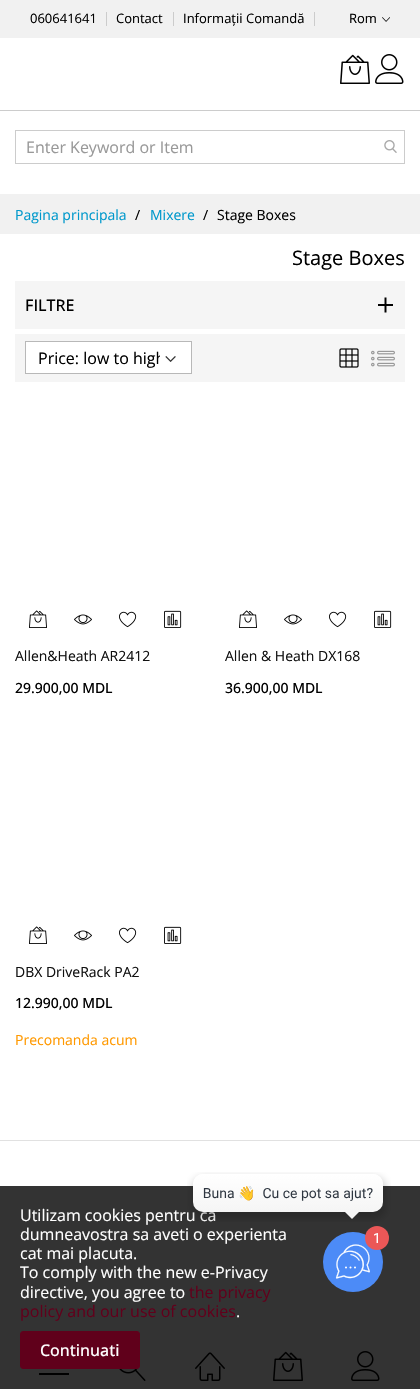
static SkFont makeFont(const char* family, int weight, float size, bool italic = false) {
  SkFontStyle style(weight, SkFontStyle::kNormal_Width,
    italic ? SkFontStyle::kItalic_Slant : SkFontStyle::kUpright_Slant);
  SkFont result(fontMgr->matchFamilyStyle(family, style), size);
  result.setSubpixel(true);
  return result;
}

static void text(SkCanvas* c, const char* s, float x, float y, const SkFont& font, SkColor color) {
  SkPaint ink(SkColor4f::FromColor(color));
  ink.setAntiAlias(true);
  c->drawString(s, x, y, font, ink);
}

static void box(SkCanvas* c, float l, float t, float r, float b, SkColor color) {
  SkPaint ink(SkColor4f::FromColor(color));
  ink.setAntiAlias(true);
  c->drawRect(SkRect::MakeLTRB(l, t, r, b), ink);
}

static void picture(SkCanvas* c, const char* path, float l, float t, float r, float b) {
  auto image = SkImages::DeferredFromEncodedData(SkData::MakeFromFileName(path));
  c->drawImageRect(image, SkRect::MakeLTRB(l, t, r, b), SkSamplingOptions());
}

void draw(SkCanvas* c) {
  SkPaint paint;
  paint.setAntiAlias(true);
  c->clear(0xffffffff);
  box(c, 0, 1186, 420, 1389, 0xff333333);
  box(c, 0, 0, 420, 38, 0xfff1f1f1);
  SkFont face1 = makeFont("Open Sans", 400, 13);
  text(c, "060641641", 30, 23, face1, 0xff000000);
  box(c, 106, 12, 107, 26, 0xffcccccc);
  text(c, "Contact", 116, 23, face1, 0xff000000);
  box(c, 173, 12, 174, 26, 0xffcccccc);
  text(c, "Informații Comandă", 183, 23, face1, 0xff000000);
  box(c, 314, 12, 315, 26, 0xffcccccc);
  text(c, "Rom", 349, 23, face1, 0xff000000);
  picture(c, "img_01.png", 382, 17, 390, 22);
  picture(c, "img_02.png", 340, 54, 370, 84);
  picture(c, "img_03.png", 375, 54, 404, 84);
  box(c, 0, 110, 420, 111, 0xffcccccc);
  paint.setStyle(SkPaint::kStroke_Style);
  paint.setStrokeWidth(1);
  paint.setColor(0xffcccccc);
  c->drawRect(SkRect::MakeLTRB(15.5f, 130.5f, 404.5f, 163.5f), paint);
  SkFont face2 = makeFont("Open Sans", 400, 16);
  text(c, "Enter Keyword or Item", 26, 153, face2, 0xff999999);
  picture(c, "img_04.png", 384, 140, 397, 153);
  box(c, 39, 1373, 69, 1375, 0xff000000);
  picture(c, "img_05.png", 119, 1368, 146, 1381);
  picture(c, "img_06.png", 195, 1352, 225, 1381);
  picture(c, "img_07.png", 273, 1351, 303, 1381);
  picture(c, "img_08.png", 351, 1351, 380, 1381);
  box(c, 0, 194, 420, 234, 0xfff1f1f1);
  SkFont face3 = makeFont("Open Sans", 400, 14);
  text(c, "Pagina principala", 15, 220, face3, 0xff0099cc);
  text(c, "/", 135, 220, face3, 0xff000000);
  text(c, "Mixere", 150, 220, face3, 0xff0099cc);
  text(c, "/", 203, 220, face3, 0xff000000);
  text(c, "Stage Boxes", 217, 220, face3, 0xff000000);
  SkFont face4 = makeFont("Open Sans", 400, 20);
  text(c, "Stage Boxes", 292, 265, face4, 0xff000000);
  box(c, 15, 281, 405, 329, 0xfff5f5f5);
  SkFont face5 = makeFont("Open Sans", 500, 16);
  text(c, "FILTRE", 25, 311, face5, 0xff000000);
  picture(c, "img_09.png", 378, 297, 393, 313);
  box(c, 15, 334, 405, 382, 0xfff5f5f5);
  paint.setStyle(SkPaint::kFill_Style);
  paint.setColor(0xffffffff);
  c->drawRect(SkRect::MakeLTRB(25.5f, 341.5f, 191.5f, 373.5f), paint);
  paint.setStyle(SkPaint::kStroke_Style);
  paint.setColor(0xffb8b8b8);
  c->drawRect(SkRect::MakeLTRB(25.5f, 341.5f, 191.5f, 373.5f), paint);
  picture(c, "img_10.png", 165, 356, 176, 362);
  c->save();
  c->clipRect(SkRect::MakeLTRB(38, 347, 160, 369));
  text(c, "Price: low to high", 38, 364, face2, 0xff000000);
  c->restore();
  picture(c, "img_11.png", 339, 348, 359, 368);
  picture(c, "img_12.png", 371, 350, 395, 367);
  picture(c, "img_13.png", 29, 610, 47, 628);
  picture(c, "img_14.png", 74, 614, 92, 625);
  picture(c, "img_15.png", 119, 611, 137, 628);
  picture(c, "img_16.png", 164, 610, 182, 628);
  text(c, "Allen&Heath AR2412", 15, 661, face3, 0xff111111);
  SkFont face6 = makeFont("Open Sans", 500, 14);
  text(c, "29.900,00 MDL", 15, 693, face6, 0xff000000);
  picture(c, "img_13.png", 239, 610, 257, 628);
  picture(c, "img_14.png", 284, 614, 302, 625);
  picture(c, "img_15.png", 329, 611, 347, 628);
  picture(c, "img_16.png", 374, 610, 392, 628);
  text(c, "Allen & Heath DX168", 225, 661, face3, 0xff111111);
  text(c, "36.900,00 MDL", 225, 693, face6, 0xff000000);
  picture(c, "img_13.png", 29, 926, 47, 944);
  picture(c, "img_14.png", 74, 930, 92, 941);
  picture(c, "img_15.png", 119, 927, 137, 944);
  picture(c, "img_16.png", 164, 926, 182, 944);
  text(c, "DBX DriveRack PA2", 15, 977, face3, 0xff111111);
  text(c, "12.990,00 MDL", 15, 1008, face6, 0xff000000);
  text(c, "Precomanda acum", 15, 1045, face3, 0xffff9900);
  box(c, 0, 1140, 420, 1141, 0xffe1e1e1);
  text(c, "Utilizam cookies pentru ca", 20, 1221, face2, 0xffffffff);
  text(c, "dumneavostra sa aveti o experienta", 20, 1240, face2, 0xffffffff);
  text(c, "cat mai placuta.", 20, 1259, face2, 0xffffffff);
  text(c, "To comply with the new e-Privacy", 20, 1278, face2, 0xffffffff);
  text(c, "directive, you agree to", 20, 1298, face2, 0xffffffff);
  text(c, "the privacy", 189, 1298, face2, 0xff60001b);
  text(c, "policy and our use of cookies", 20, 1317, face2, 0xff60001b);
  text(c, ".", 236, 1317, face2, 0xffffffff);
  paint.setStyle(SkPaint::kFill_Style);
  paint.setColor(0xff60001b);
  c->drawRoundRect(SkRect::MakeLTRB(20.5f, 1331.5f, 139.5f, 1368.5f), 2.5f, 2.5f, paint);
  paint.setStyle(SkPaint::kStroke_Style);
  c->drawRoundRect(SkRect::MakeLTRB(20.5f, 1331.5f, 139.5f, 1368.5f), 2.5f, 2.5f, paint);
  text(c, "Continuati", 40, 1356, face5, 0xffffffff);
  paint.setStyle(SkPaint::kFill_Style);
  paint.setColor(0xff4c8bf7);
  c->drawCircle(353, 1262, 30, paint);
  picture(c, "img_17.png", 187, 1172, 391, 1222);
  picture(c, "img_18.png", 335, 1244, 370, 1279);
  paint.setColor(0xffeb5757);
  c->drawCircle(377, 1238, 12, paint);
  SkFont face7 = makeFont("Roboto", 400, 14);
  text(c, "1", 373, 1243, face7, 0xffffffff);
}
